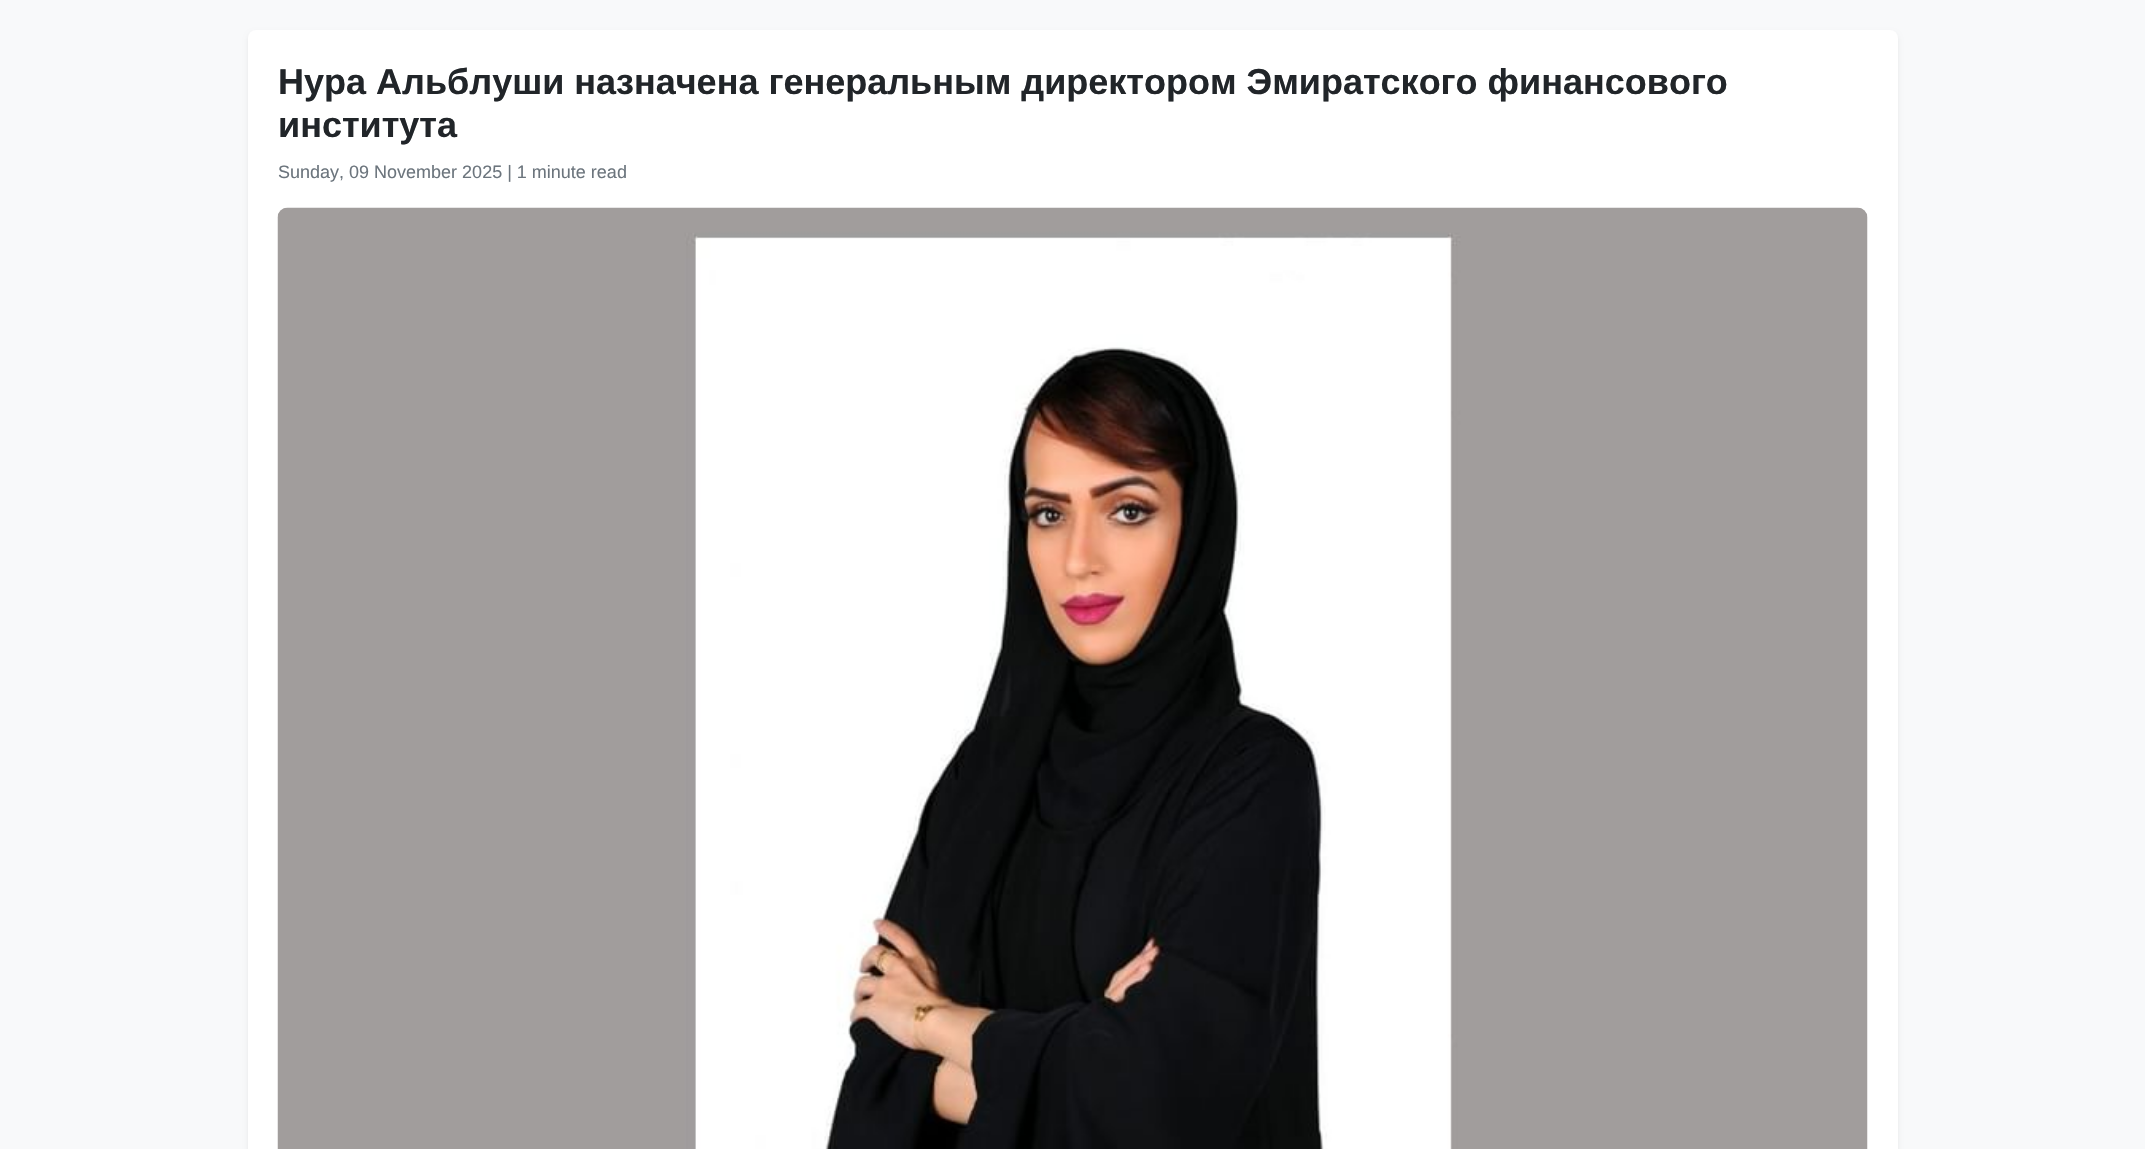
static SkFont makeFont(const char* family, int weight, float size, bool italic = false) {
  SkFontStyle style(weight, SkFontStyle::kNormal_Width,
    italic ? SkFontStyle::kItalic_Slant : SkFontStyle::kUpright_Slant);
  SkFont result(fontMgr->matchFamilyStyle(family, style), size);
  result.setSubpixel(true);
  return result;
}

static void text(SkCanvas* c, const char* s, float x, float y, const SkFont& font, SkColor color) {
  SkPaint ink(SkColor4f::FromColor(color));
  ink.setAntiAlias(true);
  c->drawString(s, x, y, font, ink);
}

static void roundBox(SkCanvas* c, float l, float t, float r, float b, float radius, SkColor color) {
  SkPaint ink(SkColor4f::FromColor(color));
  ink.setAntiAlias(true);
  c->drawRoundRect(SkRect::MakeLTRB(l, t, r, b), radius, radius, ink);
}

static void picture(SkCanvas* c, const char* path, float l, float t, float r, float b) {
  auto image = SkImages::DeferredFromEncodedData(SkData::MakeFromFileName(path));
  c->drawImageRect(image, SkRect::MakeLTRB(l, t, r, b), SkSamplingOptions());
}

void draw(SkCanvas* c) {
  SkPaint paint;
  paint.setAntiAlias(true);
  c->clear(0xfff8f9fa);
  paint.setColor(0x12000000);
  paint.setMaskFilter(SkMaskFilter::MakeBlur(kNormal_SkBlurStyle, 2.5f));
  c->drawRoundRect(SkRect::MakeLTRB(248, 33, 1898, 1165), 8, 8, paint);
  paint.setMaskFilter(nullptr);
  roundBox(c, 248, 30, 1898, 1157, 8, 0xffffffff);
  SkFont face1 = makeFont("Liberation Sans", 700, 36);
  text(c, "Нура Альблуши назначена генеральным директором Эмиратского финансового", 278, 94, face1, 0xff212529);
  text(c, "института", 278, 137, face1, 0xff212529);
  SkFont face2 = makeFont("Liberation Sans", 400, 18);
  text(c, "Sunday, 09 November 2025 | 1 minute read", 278, 178, face2, 0xff6c757d);
  picture(c, "img_01.png", 277, 207, 1868, 1149);
}
